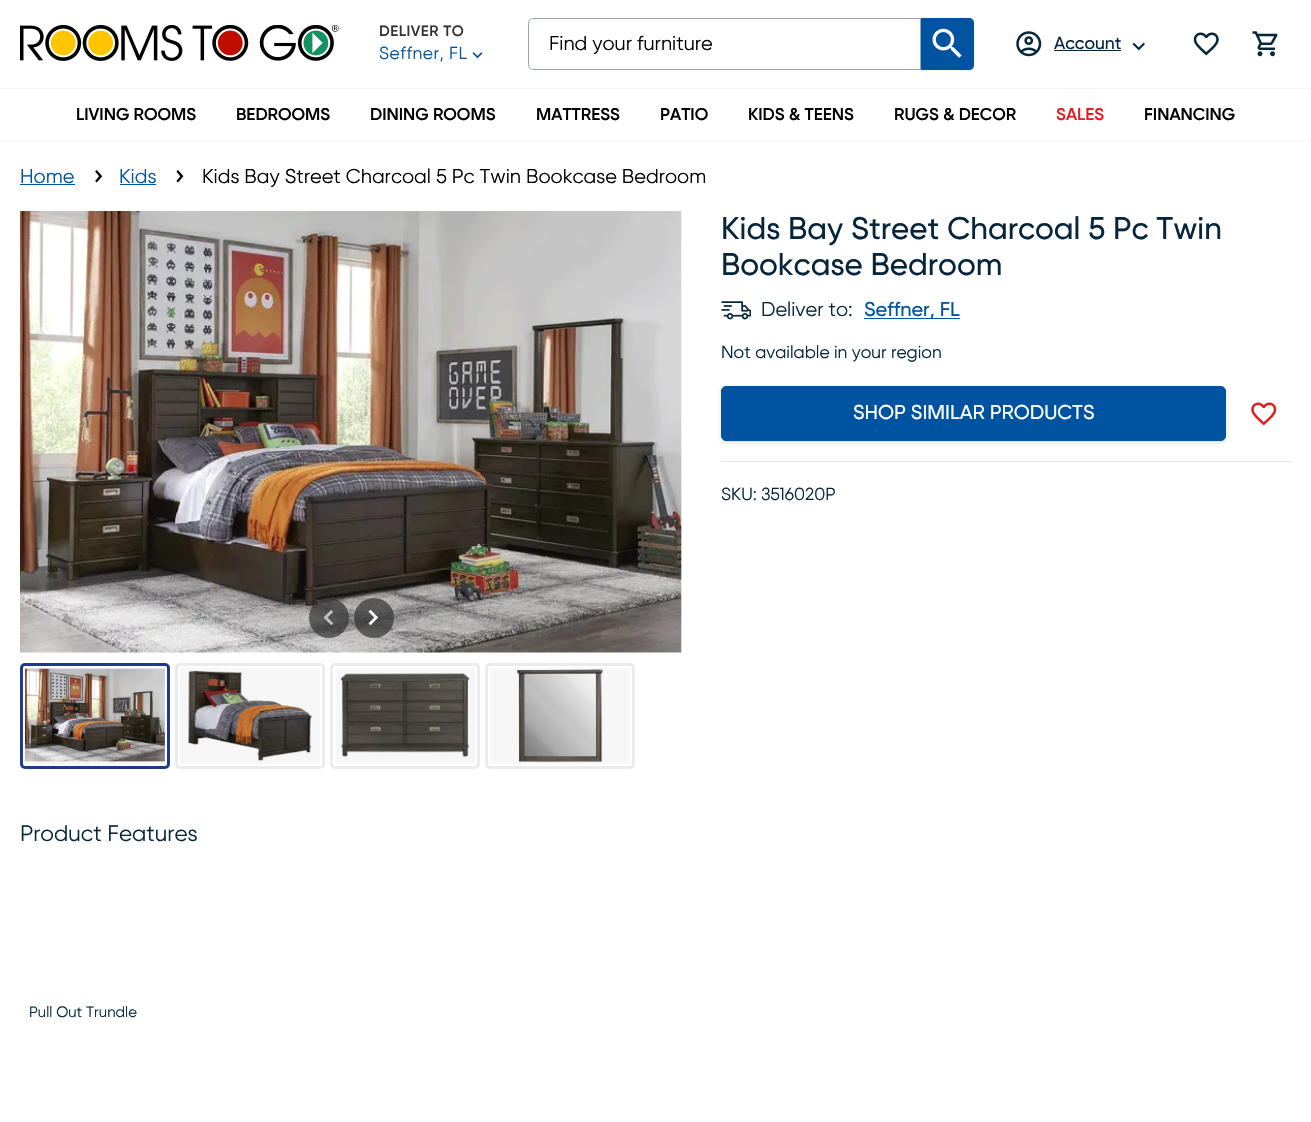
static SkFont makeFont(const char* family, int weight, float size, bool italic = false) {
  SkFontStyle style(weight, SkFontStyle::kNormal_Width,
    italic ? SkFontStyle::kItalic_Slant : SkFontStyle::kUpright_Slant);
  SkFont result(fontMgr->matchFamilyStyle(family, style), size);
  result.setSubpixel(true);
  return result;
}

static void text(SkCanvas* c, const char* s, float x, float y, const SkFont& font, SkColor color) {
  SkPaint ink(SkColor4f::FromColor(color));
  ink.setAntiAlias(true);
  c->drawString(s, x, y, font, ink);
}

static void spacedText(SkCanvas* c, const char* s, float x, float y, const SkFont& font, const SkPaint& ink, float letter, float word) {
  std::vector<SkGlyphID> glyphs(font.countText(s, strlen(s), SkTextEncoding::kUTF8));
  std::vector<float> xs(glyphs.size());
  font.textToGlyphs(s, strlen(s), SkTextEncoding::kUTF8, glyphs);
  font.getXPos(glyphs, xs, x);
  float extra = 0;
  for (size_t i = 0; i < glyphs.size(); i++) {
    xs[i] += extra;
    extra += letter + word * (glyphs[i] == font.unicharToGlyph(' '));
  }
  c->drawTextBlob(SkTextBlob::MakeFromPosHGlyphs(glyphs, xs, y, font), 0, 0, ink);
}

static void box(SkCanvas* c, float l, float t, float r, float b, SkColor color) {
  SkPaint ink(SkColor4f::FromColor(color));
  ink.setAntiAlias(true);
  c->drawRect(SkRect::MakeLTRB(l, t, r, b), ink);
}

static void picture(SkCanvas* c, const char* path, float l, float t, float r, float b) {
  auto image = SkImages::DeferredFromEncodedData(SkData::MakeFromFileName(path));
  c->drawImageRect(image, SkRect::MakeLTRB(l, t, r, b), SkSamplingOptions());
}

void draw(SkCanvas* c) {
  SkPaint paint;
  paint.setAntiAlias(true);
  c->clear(0xffffffff);
  box(c, 0, 140, 1311, 141, 0xfff3f4f6);
  picture(c, "img_01.png", 20, 25, 339, 61);
  SkFont face1 = makeFont("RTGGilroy", 600, 15);
  paint.setColor(0xff333333);
  spacedText(c, "DELIVER TO", 379, 36, face1, paint, 0.5f, 0);
  SkFont face2 = makeFont("RTGGilroy", 400, 17.5f);
  paint.setColor(0xff0053a0);
  spacedText(c, "Seffner, FL", 379, 59, face2, paint, 0.5f, 0);
  picture(c, "img_02.png", 472, 52, 483, 59);
  paint.setStyle(SkPaint::kStroke_Style);
  paint.setStrokeWidth(1);
  paint.setColor(0xff9ca3af);
  c->drawPath(SkPathBuilder().moveTo(533, 18.5f).lineTo(920.5f, 18.5f).lineTo(920.5f, 69.5f).lineTo(533, 69.5f).cubicTo(530.5f, 69.5f, 528.5f, 67.5f, 528.5f, 65).lineTo(528.5f, 23).cubicTo(528.5f, 20.5f, 530.5f, 18.5f, 533, 18.5f).close().detach(), paint);
  SkFont face3 = makeFont("RTGGilroy", 400, 20);
  text(c, "Find your furniture", 549, 50, face3, 0xff000000);
  paint.setStyle(SkPaint::kFill_Style);
  paint.setColor(0xff0053a0);
  c->drawPath(SkPathBuilder().moveTo(921, 18).lineTo(969, 18).cubicTo(972, 18, 974, 20, 974, 23).lineTo(974, 65).cubicTo(974, 68, 972, 70, 969, 70).lineTo(921, 70).close().detach(), paint);
  picture(c, "img_03.png", 932, 28, 962, 58);
  picture(c, "img_04.png", 1016, 31, 1042, 57);
  SkFont face4 = makeFont("RTGGilroy", 500, 17.5f);
  text(c, "Account", 1054, 49, face4, 0xff07263b);
  box(c, 1054, 50, 1121, 51, 0xff07263b);
  picture(c, "img_05.png", 1132, 42, 1145, 51);
  picture(c, "img_06.png", 1193, 32, 1219, 56);
  picture(c, "img_07.png", 1252, 31, 1278, 57);
  box(c, 0, 88, 1311, 89, 0xfff3f4f6);
  SkFont face5 = makeFont("RTGGilroy", 600, 17);
  text(c, "LIVING ROOMS", 76, 120, face5, 0xff000000);
  text(c, "BEDROOMS", 236, 120, face5, 0xff000000);
  text(c, "DINING ROOMS", 370, 120, face5, 0xff000000);
  text(c, "MATTRESS", 536, 120, face5, 0xff000000);
  text(c, "PATIO", 660, 120, face5, 0xff000000);
  text(c, "KIDS & TEENS", 748, 120, face5, 0xff000000);
  text(c, "RUGS & DECOR", 894, 120, face5, 0xff000000);
  text(c, "SALES", 1056, 120, face5, 0xffe11f21);
  text(c, "FINANCING", 1144, 120, face5, 0xff000000);
  text(c, "Home", 20, 183, face3, 0xff0053a0);
  box(c, 20, 184, 75, 185, 0xff0053a0);
  picture(c, "img_08.png", 95, 170, 103, 183);
  text(c, "Kids", 119, 183, face3, 0xff0053a0);
  box(c, 120, 184, 156, 185, 0xff0053a0);
  picture(c, "img_09.png", 176, 170, 184, 183);
  text(c, "Kids Bay Street Charcoal 5 Pc Twin Bookcase Bedroom", 202, 183, face3, 0xff000000);
  box(c, 721, 461, 1291, 462, 0xffe5e7eb);
  SkFont face6 = makeFont("RTGGilroy", 500, 31.25f);
  text(c, "Kids Bay Street Charcoal 5 Pc Twin", 721, 239, face6, 0xff07263b);
  text(c, "Bookcase Bedroom", 721, 275, face6, 0xff07263b);
  picture(c, "img_10.png", 721, 301, 751, 320);
  text(c, "Deliver to:", 761, 316, face3, 0xff07263b);
  box(c, 864, 318, 960, 319, 0xff0053a0);
  SkFont face7 = makeFont("RTGGilroy", 500, 20);
  text(c, "Seffner, FL", 864, 316, face7, 0xff0053a0);
  text(c, "Not available in your region", 721, 358, face2, 0xff07263b);
  paint.setColor(0x1a000000);
  paint.setMaskFilter(SkMaskFilter::MakeBlur(kNormal_SkBlurStyle, 1));
  c->drawRoundRect(SkRect::MakeLTRB(723, 389, 1225, 441), 4, 4, paint);
  paint.setMaskFilter(nullptr);
  paint.setMaskFilter(SkMaskFilter::MakeBlur(kNormal_SkBlurStyle, 2));
  c->drawRoundRect(SkRect::MakeLTRB(721, 388, 1226, 443), 5, 5, paint);
  paint.setMaskFilter(nullptr);
  paint.setColor(0xff0053a0);
  c->drawRoundRect(SkRect::MakeLTRB(721.5f, 386.5f, 1225.5f, 440.5f), 4.5f, 4.5f, paint);
  paint.setStyle(SkPaint::kStroke_Style);
  c->drawRoundRect(SkRect::MakeLTRB(721.5f, 386.5f, 1225.5f, 440.5f), 4.5f, 4.5f, paint);
  text(c, "SHOP SIMILAR PRODUCTS", 853, 419, face7, 0xffffffff);
  picture(c, "img_11.png", 1251, 402, 1277, 426);
  text(c, "SKU: 3516020P", 721, 500, face2, 0xff07263b);
  picture(c, "img_12.png", 20, 211, 682, 653);
  paint.setStyle(SkPaint::kFill_Style);
  paint.setColor(0xb3333333);
  c->drawCircle(329, 618, 20, paint);
  picture(c, "img_13.png", 323, 609, 334, 626);
  c->drawCircle(374, 618, 20, paint);
  picture(c, "img_14.png", 368, 609, 379, 626);
  paint.setStyle(SkPaint::kStroke_Style);
  paint.setStrokeWidth(3);
  paint.setColor(0xff1e3a8a);
  c->drawRoundRect(SkRect::MakeLTRB(21.5f, 664.5f, 168.5f, 767.5f), 3.5f, 3.5f, paint);
  box(c, 25, 668, 165, 764, 0xfff6f6f6);
  picture(c, "img_15.png", 25, 668, 165, 762);
  paint.setColor(0xffebebeb);
  c->drawRoundRect(SkRect::MakeLTRB(176.5f, 664.5f, 323.5f, 767.5f), 3.5f, 3.5f, paint);
  box(c, 180, 668, 320, 764, 0xfff6f6f6);
  picture(c, "img_16.png", 188, 670, 312, 761);
  c->drawRoundRect(SkRect::MakeLTRB(331.5f, 664.5f, 478.5f, 767.5f), 3.5f, 3.5f, paint);
  box(c, 335, 668, 475, 764, 0xfff6f6f6);
  picture(c, "img_17.png", 341, 673, 470, 757);
  c->drawRoundRect(SkRect::MakeLTRB(486.5f, 664.5f, 633.5f, 767.5f), 3.5f, 3.5f, paint);
  box(c, 490, 668, 630, 764, 0xfff6f6f6);
  picture(c, "img_18.png", 517, 669, 603, 762);
  SkFont face8 = makeFont("RTGGilroy", 400, 22.5f);
  text(c, "Product Features", 20, 841, face8, 0xff07263b);
  SkFont face9 = makeFont("RTGGilroy", 400, 15);
  text(c, "Pull Out Trundle", 29, 1017, face9, 0xff07263b);
}
